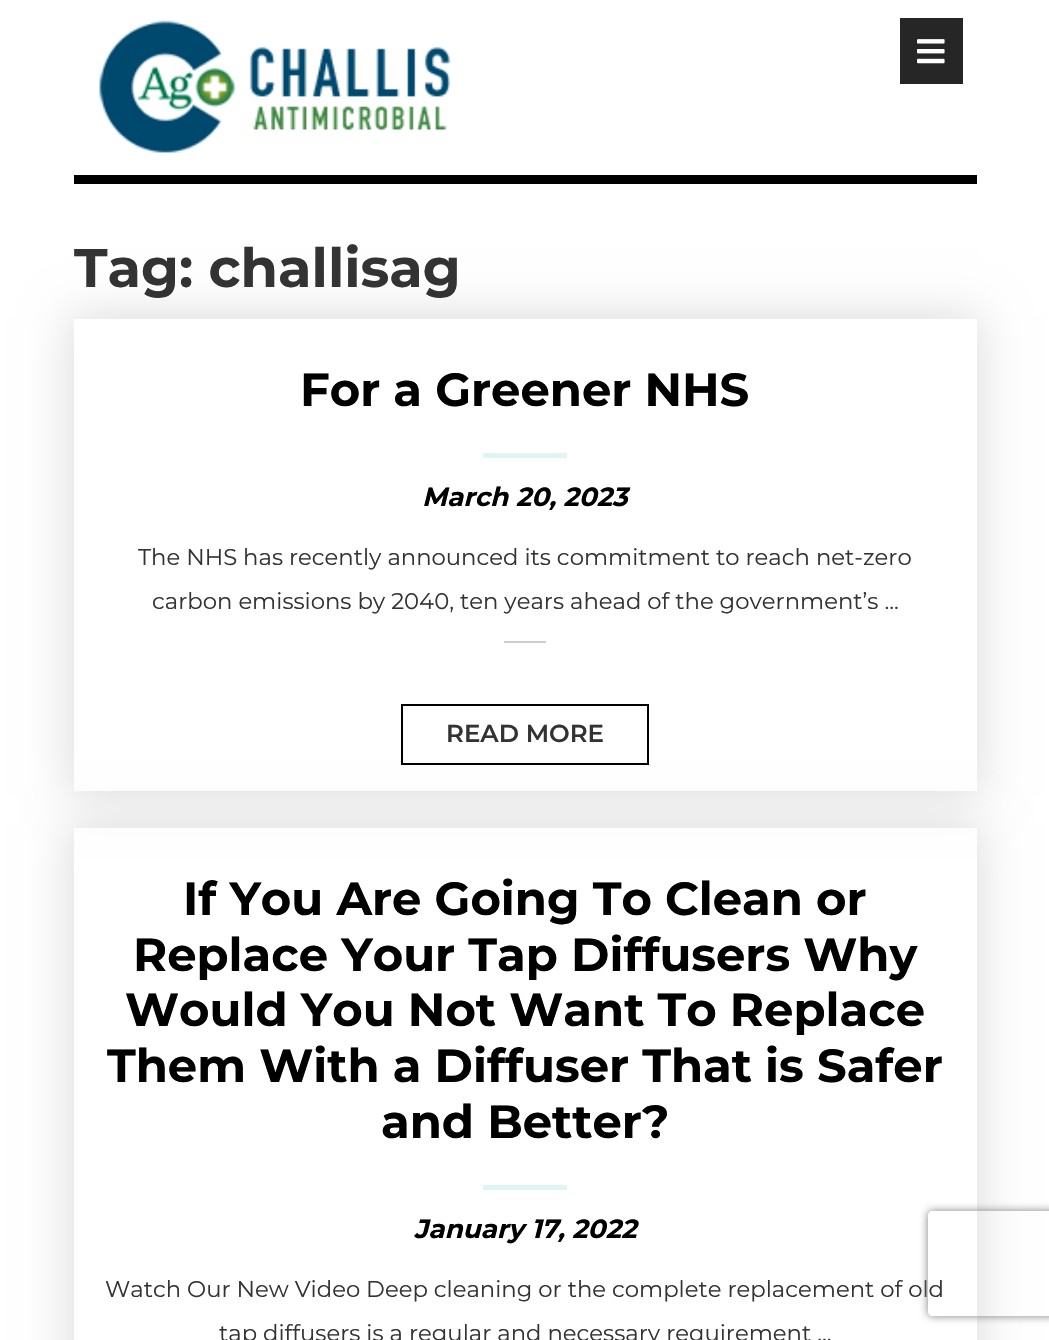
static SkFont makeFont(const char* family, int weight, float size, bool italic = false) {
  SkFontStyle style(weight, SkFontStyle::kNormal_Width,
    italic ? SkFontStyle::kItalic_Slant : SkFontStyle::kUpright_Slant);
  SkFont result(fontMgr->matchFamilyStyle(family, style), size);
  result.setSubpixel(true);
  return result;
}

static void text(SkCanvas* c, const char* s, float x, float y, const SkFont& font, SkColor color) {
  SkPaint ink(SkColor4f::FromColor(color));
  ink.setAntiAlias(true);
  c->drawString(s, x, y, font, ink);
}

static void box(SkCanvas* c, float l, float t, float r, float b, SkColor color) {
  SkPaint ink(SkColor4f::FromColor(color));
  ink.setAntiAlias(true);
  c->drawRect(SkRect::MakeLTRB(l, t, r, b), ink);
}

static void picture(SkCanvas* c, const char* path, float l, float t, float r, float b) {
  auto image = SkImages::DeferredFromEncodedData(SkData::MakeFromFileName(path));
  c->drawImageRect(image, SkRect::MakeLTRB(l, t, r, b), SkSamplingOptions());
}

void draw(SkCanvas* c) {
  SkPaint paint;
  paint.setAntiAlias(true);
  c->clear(0xffffffff);
  box(c, 74, 175, 977, 184, 0xff000000);
  picture(c, "img_01.png", 99, 20, 451, 153);
  box(c, 900, 18, 963, 84, 0xff262626);
  picture(c, "img_02.png", 917, 39, 945, 64);
  c->save();
  c->clipPath(SkPathBuilder(SkPathFillType::kEvenOdd).moveTo(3, 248).lineTo(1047, 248).lineTo(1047, 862).lineTo(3, 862).close().moveTo(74, 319).lineTo(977, 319).lineTo(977, 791).lineTo(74, 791).close().detach(), true);
  paint.setColor(0xffdddddd);
  paint.setMaskFilter(SkMaskFilter::MakeBlur(kNormal_SkBlurStyle, 22));
  c->drawRect(SkRect::MakeLTRB(70, 315, 980, 795), paint);
  paint.setMaskFilter(nullptr);
  c->restore();
  SkFont face1 = makeFont("Montserrat", 700, 54.25f);
  text(c, "Tag: challisag", 74, 287, face1, 0xff333333);
  SkFont face2 = makeFont("Montserrat", 700, 46.5f);
  text(c, "For a Greener NHS", 300, 406, face2, 0xff000000);
  box(c, 483, 453, 567, 458, 0xffe0f5f3);
  SkFont face3 = makeFont("Montserrat", 700, 26.25f, true);
  text(c, "March 20, 2023", 422, 506, face3, 0xff000000);
  SkFont face4 = makeFont("Montserrat", 400, 22.75f);
  text(c, "The NHS has recently announced its commitment to reach net-zero", 138, 565, face4, 0xff333333);
  text(c, "carbon emissions by 2040, ten years ahead of the government’s ...", 152, 609, face4, 0xff333333);
  box(c, 504, 641, 546, 643, 0xffcccccc);
  c->save();
  c->clipPath(SkPathBuilder(SkPathFillType::kEvenOdd).moveTo(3, 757).lineTo(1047, 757).lineTo(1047, 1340).lineTo(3, 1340).close().moveTo(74, 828).lineTo(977, 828).lineTo(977, 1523).lineTo(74, 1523).close().detach(), true);
  paint.setMaskFilter(SkMaskFilter::MakeBlur(kNormal_SkBlurStyle, 22));
  c->drawRect(SkRect::MakeLTRB(70, 824, 980, 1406), paint);
  paint.setMaskFilter(nullptr);
  c->restore();
  paint.setStyle(SkPaint::kStroke_Style);
  paint.setStrokeWidth(2);
  paint.setColor(0xff000000);
  c->drawRect(SkRect::MakeLTRB(402, 705, 648, 764), paint);
  SkFont face5 = makeFont("Montserrat", 600, 24.5f);
  text(c, "READ MORE", 446, 742, face5, 0xff333333);
  text(c, "If You Are Going To Clean or", 183, 915, face2, 0xff000000);
  text(c, "Replace Your Tap Diffusers Why", 133, 971, face2, 0xff000000);
  text(c, "Would You Not Want To Replace", 125, 1026, face2, 0xff000000);
  text(c, "Them With a Diffuser That is Safer", 107, 1082, face2, 0xff000000);
  text(c, "and Better?", 381, 1138, face2, 0xff000000);
  box(c, 483, 1185, 567, 1190, 0xffe0f5f3);
  text(c, "January 17, 2022", 414, 1238, face3, 0xff000000);
  text(c, "Watch Our New Video Deep cleaning or the complete replacement of old", 105, 1297, face4, 0xff333333);
  text(c, "tap diffusers is a regular and necessary requirement ...", 219, 1341, face4, 0xff333333);
  c->save();
  c->clipPath(SkPathBuilder(SkPathFillType::kEvenOdd).moveTo(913, 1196).lineTo(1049, 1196).lineTo(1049, 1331).lineTo(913, 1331).close().moveTo(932, 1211).lineTo(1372, 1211).cubicTo(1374, 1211, 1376, 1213, 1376, 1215).lineTo(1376, 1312).cubicTo(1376, 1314, 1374, 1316, 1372, 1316).lineTo(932, 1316).cubicTo(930, 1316, 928, 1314, 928, 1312).lineTo(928, 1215).cubicTo(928, 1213, 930, 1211, 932, 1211).close().detach(), true);
  paint.setStyle(SkPaint::kFill_Style);
  paint.setColor(0xff808080);
  paint.setMaskFilter(SkMaskFilter::MakeBlur(kNormal_SkBlurStyle, 4.5f));
  c->drawRoundRect(SkRect::MakeLTRB(928, 1211, 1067, 1316), 4, 4, paint);
  paint.setMaskFilter(nullptr);
  c->restore();
}
